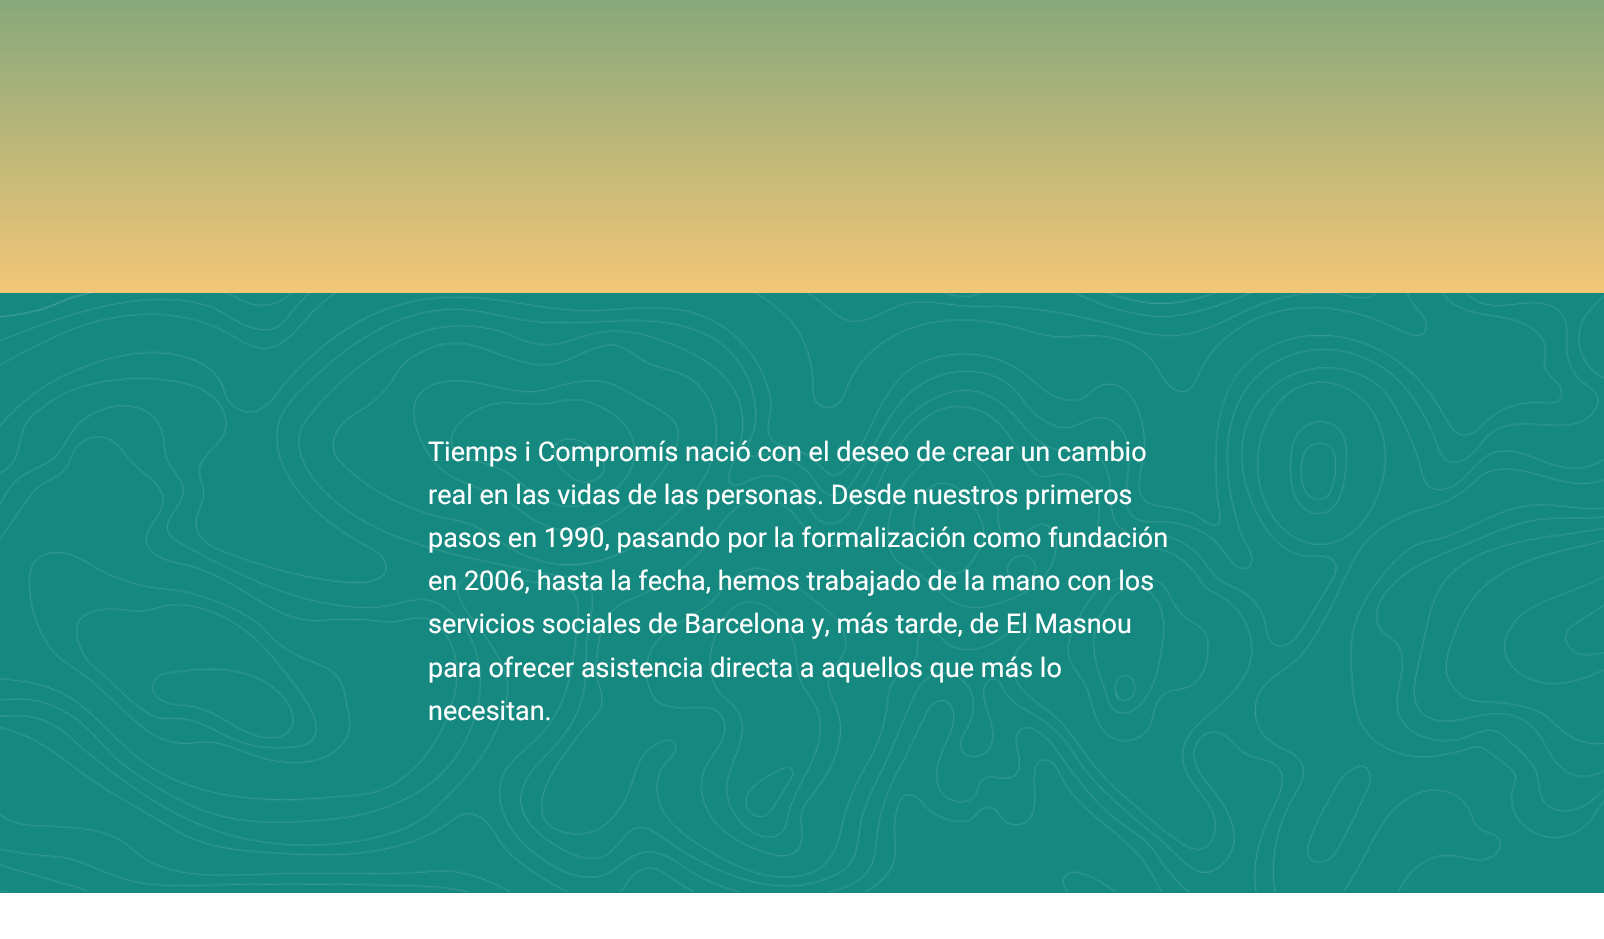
static SkFont makeFont(const char* family, int weight, float size, bool italic = false) {
  SkFontStyle style(weight, SkFontStyle::kNormal_Width,
    italic ? SkFontStyle::kItalic_Slant : SkFontStyle::kUpright_Slant);
  SkFont result(fontMgr->matchFamilyStyle(family, style), size);
  result.setSubpixel(true);
  return result;
}

static void text(SkCanvas* c, const char* s, float x, float y, const SkFont& font, SkColor color) {
  SkPaint ink(SkColor4f::FromColor(color));
  ink.setAntiAlias(true);
  c->drawString(s, x, y, font, ink);
}

static void box(SkCanvas* c, float l, float t, float r, float b, SkColor color) {
  SkPaint ink(SkColor4f::FromColor(color));
  ink.setAntiAlias(true);
  c->drawRect(SkRect::MakeLTRB(l, t, r, b), ink);
}

static void picture(SkCanvas* c, const char* path, float l, float t, float r, float b) {
  auto image = SkImages::DeferredFromEncodedData(SkData::MakeFromFileName(path));
  c->drawImageRect(image, SkRect::MakeLTRB(l, t, r, b), SkSamplingOptions());
}

void draw(SkCanvas* c) {
  SkPaint paint;
  paint.setAntiAlias(true);
  c->clear(0xffffffff);
  {
    const SkColor colors[] = {0xff158980, 0xfff3c677};
    const float stops[] = {0, 1};
    const SkPoint ends[] = {{803, -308}, {803, 293}};
    paint.setShader(SkGradientShader::MakeLinear(ends, colors, stops, 2, SkTileMode::kClamp));
    paint.setAlpha(255);
  }
  c->drawRect(SkRect::MakeLTRB(0, 0, 1604, 293), paint);
  box(c, 0, 293, 1604, 893, 0xff158980);
  picture(c, "img_01.png", 0, 292, 1604, 892);
  SkFont face1 = makeFont("Roboto", 400, 27);
  text(c, "Tiemps i Compromís nació con el deseo de crear un cambio", 428, 461, face1, 0xffffffff);
  text(c, "real en las vidas de las personas. Desde nuestros primeros", 428, 504, face1, 0xffffffff);
  text(c, "pasos en 1990, pasando por la formalización como fundación", 428, 547, face1, 0xffffffff);
  text(c, "en 2006, hasta la fecha, hemos trabajado de la mano con los", 428, 590, face1, 0xffffffff);
  text(c, "servicios sociales de Barcelona y, más tarde, de El Masnou", 428, 633, face1, 0xffffffff);
  text(c, "para ofrecer asistencia directa a aquellos que más lo", 428, 677, face1, 0xffffffff);
  text(c, "necesitan.", 428, 720, face1, 0xffffffff);
}
